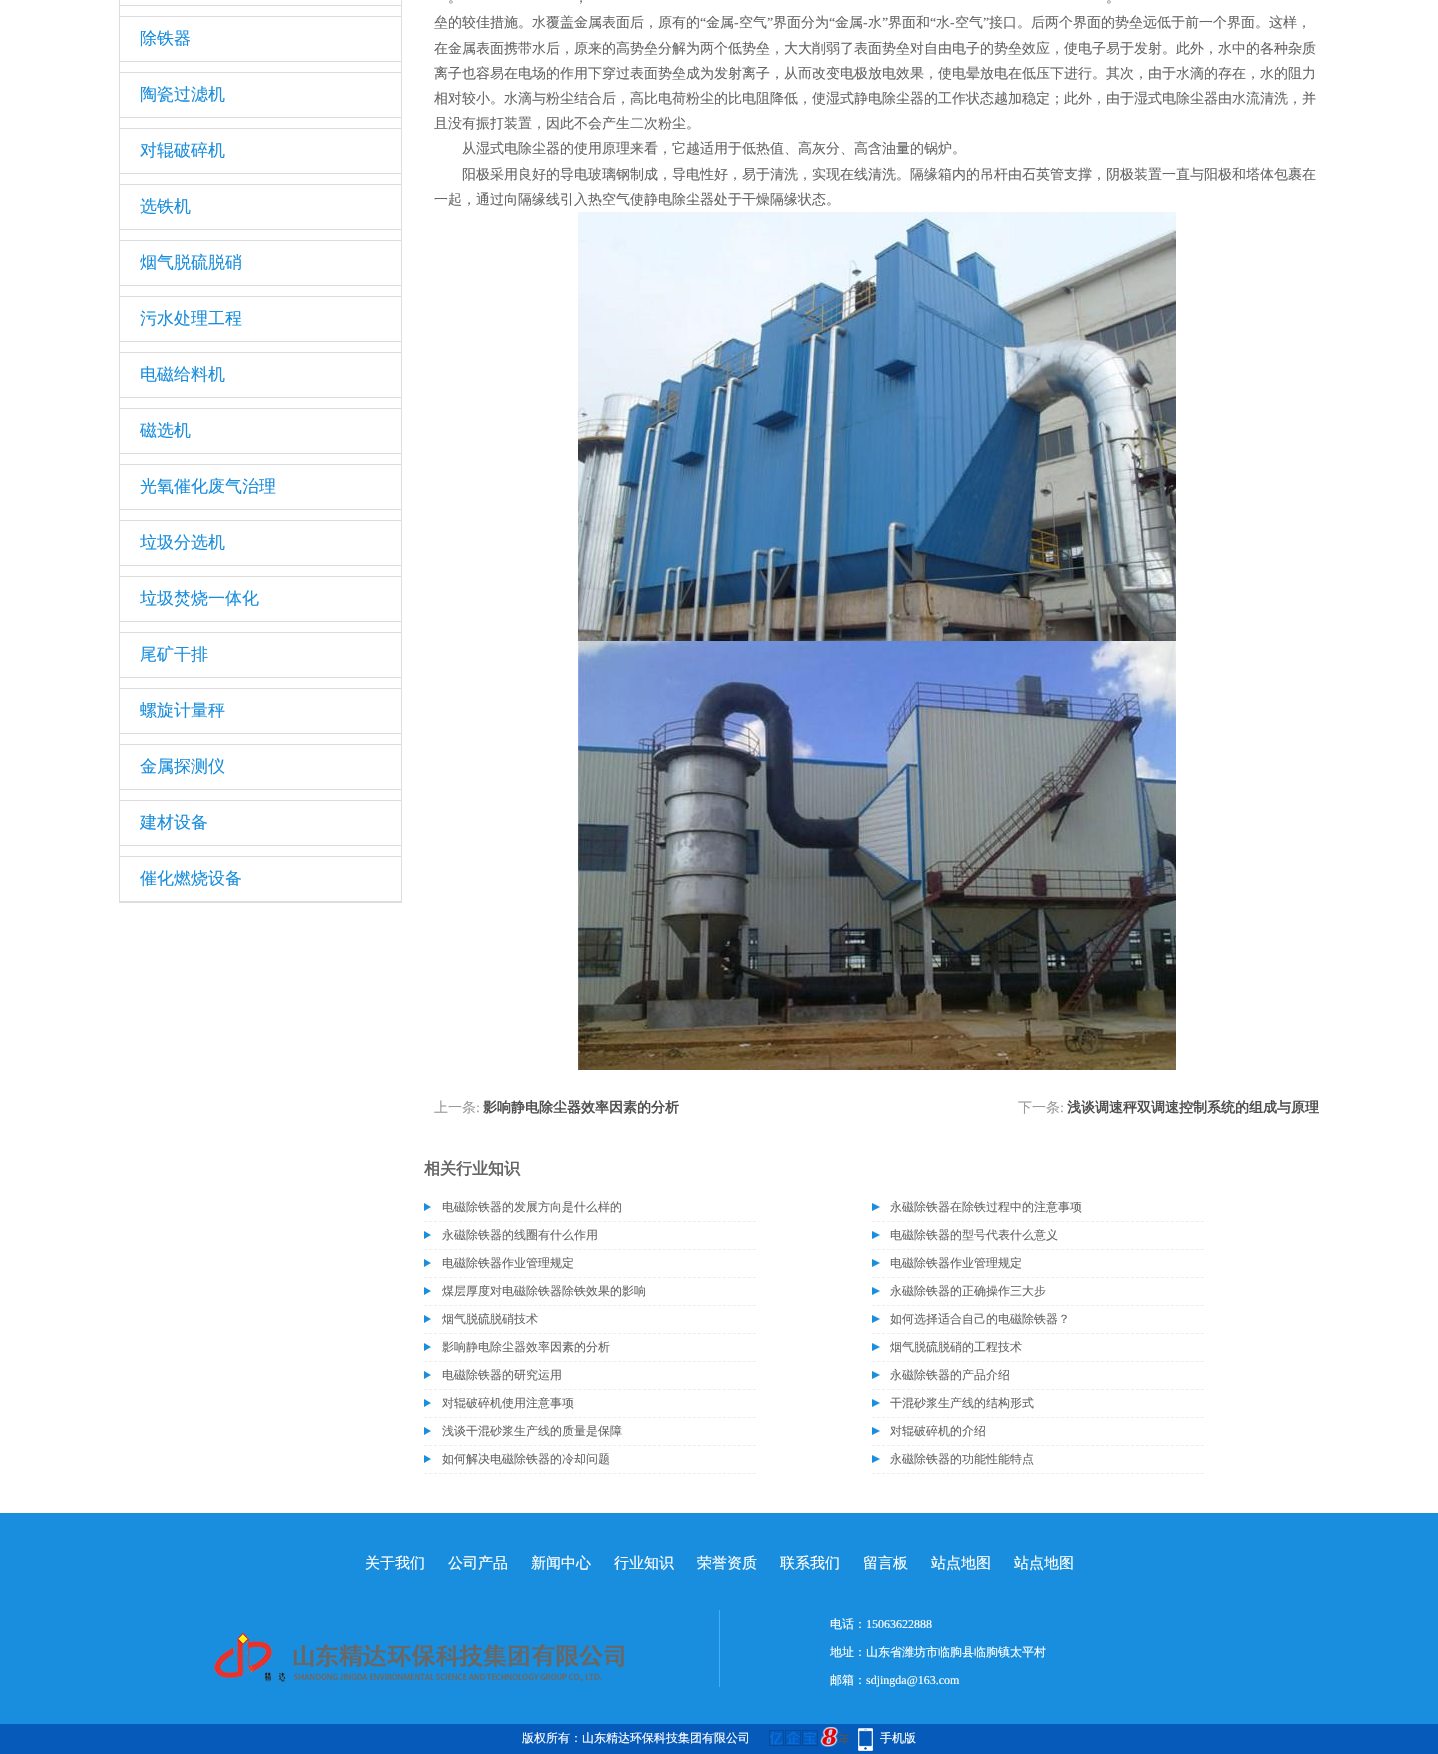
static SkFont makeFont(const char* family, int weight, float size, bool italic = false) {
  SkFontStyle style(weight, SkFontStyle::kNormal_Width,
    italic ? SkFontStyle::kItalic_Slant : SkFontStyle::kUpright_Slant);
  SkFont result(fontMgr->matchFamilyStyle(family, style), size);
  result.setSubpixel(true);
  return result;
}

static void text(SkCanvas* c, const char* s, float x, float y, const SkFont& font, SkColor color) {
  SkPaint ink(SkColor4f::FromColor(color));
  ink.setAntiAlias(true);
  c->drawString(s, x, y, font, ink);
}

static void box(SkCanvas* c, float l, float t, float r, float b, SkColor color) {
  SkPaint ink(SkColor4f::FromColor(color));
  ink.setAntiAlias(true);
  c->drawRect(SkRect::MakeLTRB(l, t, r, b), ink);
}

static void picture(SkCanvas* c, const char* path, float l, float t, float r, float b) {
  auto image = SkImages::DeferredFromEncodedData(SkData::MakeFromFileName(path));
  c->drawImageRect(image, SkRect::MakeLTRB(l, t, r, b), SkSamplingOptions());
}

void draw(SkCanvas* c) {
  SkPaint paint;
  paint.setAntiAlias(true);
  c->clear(0xffffffff);
  box(c, 401, 0, 402, 903, 0xffdddddd);
  box(c, 119, 902, 402, 903, 0xffdddddd);
  box(c, 119, 0, 120, 903, 0xffdddddd);
  box(c, 120, 5, 401, 6, 0xffdddddd);
  box(c, 120, 16, 401, 17, 0xffdddddd);
  box(c, 120, 61, 401, 62, 0xffdddddd);
  SkFont face1 = makeFont("WenQuanYi Zen Hei", 500, 17);
  text(c, "除铁器", 140, 44, face1, 0xff198ede);
  box(c, 120, 72, 401, 73, 0xffdddddd);
  box(c, 120, 117, 401, 118, 0xffdddddd);
  text(c, "陶瓷过滤机", 140, 100, face1, 0xff198ede);
  box(c, 120, 128, 401, 129, 0xffdddddd);
  box(c, 120, 173, 401, 174, 0xffdddddd);
  text(c, "对辊破碎机", 140, 156, face1, 0xff198ede);
  box(c, 120, 184, 401, 185, 0xffdddddd);
  box(c, 120, 229, 401, 230, 0xffdddddd);
  text(c, "选铁机", 140, 212, face1, 0xff198ede);
  box(c, 120, 240, 401, 241, 0xffdddddd);
  box(c, 120, 285, 401, 286, 0xffdddddd);
  text(c, "烟气脱硫脱硝", 140, 268, face1, 0xff198ede);
  box(c, 120, 296, 401, 297, 0xffdddddd);
  box(c, 120, 341, 401, 342, 0xffdddddd);
  text(c, "污水处理工程", 140, 324, face1, 0xff198ede);
  box(c, 120, 352, 401, 353, 0xffdddddd);
  box(c, 120, 397, 401, 398, 0xffdddddd);
  text(c, "电磁给料机", 140, 380, face1, 0xff198ede);
  box(c, 120, 408, 401, 409, 0xffdddddd);
  box(c, 120, 453, 401, 454, 0xffdddddd);
  text(c, "磁选机", 140, 436, face1, 0xff198ede);
  box(c, 120, 464, 401, 465, 0xffdddddd);
  box(c, 120, 509, 401, 510, 0xffdddddd);
  text(c, "光氧催化废气治理", 140, 492, face1, 0xff198ede);
  box(c, 120, 520, 401, 521, 0xffdddddd);
  box(c, 120, 565, 401, 566, 0xffdddddd);
  text(c, "垃圾分选机", 140, 548, face1, 0xff198ede);
  box(c, 120, 576, 401, 577, 0xffdddddd);
  box(c, 120, 621, 401, 622, 0xffdddddd);
  text(c, "垃圾焚烧一体化", 140, 604, face1, 0xff198ede);
  box(c, 120, 632, 401, 633, 0xffdddddd);
  box(c, 120, 677, 401, 678, 0xffdddddd);
  text(c, "尾矿干排", 140, 660, face1, 0xff198ede);
  box(c, 120, 688, 401, 689, 0xffdddddd);
  box(c, 120, 733, 401, 734, 0xffdddddd);
  text(c, "螺旋计量秤", 140, 716, face1, 0xff198ede);
  box(c, 120, 744, 401, 745, 0xffdddddd);
  box(c, 120, 789, 401, 790, 0xffdddddd);
  text(c, "金属探测仪", 140, 772, face1, 0xff198ede);
  box(c, 120, 800, 401, 801, 0xffdddddd);
  box(c, 120, 845, 401, 846, 0xffdddddd);
  text(c, "建材设备", 140, 828, face1, 0xff198ede);
  box(c, 120, 856, 401, 857, 0xffdddddd);
  box(c, 120, 901, 401, 902, 0xffdddddd);
  text(c, "催化燃烧设备", 140, 884, face1, 0xff198ede);
  SkFont face2 = makeFont("WenQuanYi Zen Hei", 500, 14);
  text(c, "。", 448, 2, face2, 0xff666666);
  text(c, "，", 574, 2, face2, 0xff666666);
  text(c, "。", 1106, 2, face2, 0xff666666);
  text(c, "垒的较佳措施。水覆盖金属表面后，原有的", 434, 27, face2, 0xff666666);
  SkFont face3 = makeFont("Liberation Serif", 400, 14);
  text(c, "“", 700, 27, face3, 0xff666666);
  text(c, "金属", 706, 27, face2, 0xff666666);
  text(c, "空气", 739, 27, face2, 0xff666666);
  text(c, "”", 767, 27, face3, 0xff666666);
  text(c, "界面分为", 773, 27, face2, 0xff666666);
  text(c, "“", 829, 27, face3, 0xff666666);
  text(c, "金属", 835, 27, face2, 0xff666666);
  text(c, "水", 868, 27, face2, 0xff666666);
  text(c, "”", 882, 27, face3, 0xff666666);
  text(c, "界面和", 888, 27, face2, 0xff666666);
  text(c, "“", 930, 27, face3, 0xff666666);
  text(c, "水", 936, 27, face2, 0xff666666);
  text(c, "空气", 955, 27, face2, 0xff666666);
  text(c, "”", 983, 27, face3, 0xff666666);
  text(c, "接口。后两个界面的势垒远低于前一个界面。这样，", 989, 27, face2, 0xff666666);
  text(c, "-", 734, 27, face3, 0xff666666);
  text(c, "-", 863, 27, face3, 0xff666666);
  text(c, "-", 950, 27, face3, 0xff666666);
  text(c, "在金属表面携带水后，原来的高势垒分解为两个低势垒，大大削弱了表面势垒对自由电子的势垒效应，使电子易于发射。此外，水中的各种杂质", 434, 53, face2, 0xff666666);
  text(c, "离子也容易在电场的作用下穿过表面势垒成为发射离子，从而改变电极放电效果，使电晕放电在低压下进行。其次，由于水滴的存在，水的阻力", 434, 78, face2, 0xff666666);
  text(c, "相对较小。水滴与粉尘结合后，高比电荷粉尘的比电阻降低，使湿式静电除尘器的工作状态越加稳定；此外，由于湿式电除尘器由水流清洗，并", 434, 103, face2, 0xff666666);
  text(c, "且没有振打装置，因此不会产生二次粉尘。", 434, 128, face2, 0xff666666);
  text(c, "从湿式电除尘器的使用原理来看，它越适用于低热值、高灰分、高含油量的锅炉。", 462, 153, face2, 0xff666666);
  text(c, "阳极采用良好的导电玻璃钢制成，导电性好，易于清洗，实现在线清洗。隔缘箱内的吊杆由石英管支撑，阴极装置一直与阳极和塔体包裹在", 462, 179, face2, 0xff666666);
  text(c, "一起，通过向隔缘线引入热空气使静电除尘器处于干燥隔缘状态。", 434, 204, face2, 0xff666666);
  picture(c, "img_01.png", 578, 212, 1176, 641);
  picture(c, "img_02.png", 578, 641, 1176, 1070);
  text(c, "上一条", 434, 1112, face2, 0xff999999);
  text(c, ":", 476, 1112, face3, 0xff999999);
  SkFont face4 = makeFont("WenQuanYi Zen Hei", 700, 14);
  text(c, "影响静电除尘器效率因素的分析", 483, 1112, face4, 0xff505050);
  text(c, "下一条", 1018, 1112, face2, 0xff999999);
  text(c, ":", 1060, 1112, face3, 0xff999999);
  text(c, "浅谈调速秤双调速控制系统的组成与原理", 1067, 1112, face4, 0xff505050);
  SkFont face5 = makeFont("WenQuanYi Zen Hei", 700, 16);
  text(c, "相关行业知识", 424, 1174, face5, 0xff666666);
  picture(c, "img_03.png", 424, 1203, 431, 1211);
  paint.setStyle(SkPaint::kStroke_Style);
  paint.setStrokeWidth(1);
  paint.setColor(0xffeeeeee);
  paint.setPathEffect(SkDashPathEffect::Make({{3, 1.98f}}, 0));
  c->drawPath(SkPathBuilder().moveTo(424, 1221.5f).lineTo(756, 1221.5f).detach(), paint);
  paint.setPathEffect(nullptr);
  SkFont face6 = makeFont("WenQuanYi Zen Hei", 500, 12);
  text(c, "电磁除铁器的发展方向是什么样的", 442, 1211, face6, 0xff666666);
  picture(c, "img_04.png", 872, 1203, 880, 1211);
  paint.setPathEffect(SkDashPathEffect::Make({{3, 1.98f}}, 0));
  c->drawPath(SkPathBuilder().moveTo(872, 1221.5f).lineTo(1204, 1221.5f).detach(), paint);
  paint.setPathEffect(nullptr);
  text(c, "永磁除铁器在除铁过程中的注意事项", 890, 1211, face6, 0xff666666);
  picture(c, "img_03.png", 424, 1231, 431, 1239);
  paint.setPathEffect(SkDashPathEffect::Make({{3, 1.98f}}, 0));
  c->drawPath(SkPathBuilder().moveTo(424, 1249.5f).lineTo(756, 1249.5f).detach(), paint);
  paint.setPathEffect(nullptr);
  text(c, "永磁除铁器的线圈有什么作用", 442, 1239, face6, 0xff666666);
  picture(c, "img_04.png", 872, 1231, 880, 1239);
  paint.setPathEffect(SkDashPathEffect::Make({{3, 1.98f}}, 0));
  c->drawPath(SkPathBuilder().moveTo(872, 1249.5f).lineTo(1204, 1249.5f).detach(), paint);
  paint.setPathEffect(nullptr);
  text(c, "电磁除铁器的型号代表什么意义", 890, 1239, face6, 0xff666666);
  picture(c, "img_03.png", 424, 1259, 431, 1267);
  paint.setPathEffect(SkDashPathEffect::Make({{3, 1.98f}}, 0));
  c->drawPath(SkPathBuilder().moveTo(424, 1277.5f).lineTo(756, 1277.5f).detach(), paint);
  paint.setPathEffect(nullptr);
  text(c, "电磁除铁器作业管理规定", 442, 1267, face6, 0xff666666);
  picture(c, "img_04.png", 872, 1259, 880, 1267);
  paint.setPathEffect(SkDashPathEffect::Make({{3, 1.98f}}, 0));
  c->drawPath(SkPathBuilder().moveTo(872, 1277.5f).lineTo(1204, 1277.5f).detach(), paint);
  paint.setPathEffect(nullptr);
  text(c, "电磁除铁器作业管理规定", 890, 1267, face6, 0xff666666);
  picture(c, "img_03.png", 424, 1287, 431, 1295);
  paint.setPathEffect(SkDashPathEffect::Make({{3, 1.98f}}, 0));
  c->drawPath(SkPathBuilder().moveTo(424, 1305.5f).lineTo(756, 1305.5f).detach(), paint);
  paint.setPathEffect(nullptr);
  text(c, "煤层厚度对电磁除铁器除铁效果的影响", 442, 1295, face6, 0xff666666);
  picture(c, "img_04.png", 872, 1287, 880, 1295);
  paint.setPathEffect(SkDashPathEffect::Make({{3, 1.98f}}, 0));
  c->drawPath(SkPathBuilder().moveTo(872, 1305.5f).lineTo(1204, 1305.5f).detach(), paint);
  paint.setPathEffect(nullptr);
  text(c, "永磁除铁器的正确操作三大步", 890, 1295, face6, 0xff666666);
  picture(c, "img_03.png", 424, 1315, 431, 1323);
  paint.setPathEffect(SkDashPathEffect::Make({{3, 1.98f}}, 0));
  c->drawPath(SkPathBuilder().moveTo(424, 1333.5f).lineTo(756, 1333.5f).detach(), paint);
  paint.setPathEffect(nullptr);
  text(c, "烟气脱硫脱硝技术", 442, 1323, face6, 0xff666666);
  picture(c, "img_04.png", 872, 1315, 880, 1323);
  paint.setPathEffect(SkDashPathEffect::Make({{3, 1.98f}}, 0));
  c->drawPath(SkPathBuilder().moveTo(872, 1333.5f).lineTo(1204, 1333.5f).detach(), paint);
  paint.setPathEffect(nullptr);
  text(c, "如何选择适合自己的电磁除铁器？", 890, 1323, face6, 0xff666666);
  picture(c, "img_03.png", 424, 1343, 431, 1351);
  paint.setPathEffect(SkDashPathEffect::Make({{3, 1.98f}}, 0));
  c->drawPath(SkPathBuilder().moveTo(424, 1361.5f).lineTo(756, 1361.5f).detach(), paint);
  paint.setPathEffect(nullptr);
  text(c, "影响静电除尘器效率因素的分析", 442, 1351, face6, 0xff666666);
  picture(c, "img_04.png", 872, 1343, 880, 1351);
  paint.setPathEffect(SkDashPathEffect::Make({{3, 1.98f}}, 0));
  c->drawPath(SkPathBuilder().moveTo(872, 1361.5f).lineTo(1204, 1361.5f).detach(), paint);
  paint.setPathEffect(nullptr);
  text(c, "烟气脱硫脱硝的工程技术", 890, 1351, face6, 0xff666666);
  picture(c, "img_03.png", 424, 1371, 431, 1379);
  paint.setPathEffect(SkDashPathEffect::Make({{3, 1.98f}}, 0));
  c->drawPath(SkPathBuilder().moveTo(424, 1389.5f).lineTo(756, 1389.5f).detach(), paint);
  paint.setPathEffect(nullptr);
  text(c, "电磁除铁器的研究运用", 442, 1379, face6, 0xff666666);
  picture(c, "img_04.png", 872, 1371, 880, 1379);
  paint.setPathEffect(SkDashPathEffect::Make({{3, 1.98f}}, 0));
  c->drawPath(SkPathBuilder().moveTo(872, 1389.5f).lineTo(1204, 1389.5f).detach(), paint);
  paint.setPathEffect(nullptr);
  text(c, "永磁除铁器的产品介绍", 890, 1379, face6, 0xff666666);
  picture(c, "img_03.png", 424, 1399, 431, 1407);
  paint.setPathEffect(SkDashPathEffect::Make({{3, 1.98f}}, 0));
  c->drawPath(SkPathBuilder().moveTo(424, 1417.5f).lineTo(756, 1417.5f).detach(), paint);
  paint.setPathEffect(nullptr);
  text(c, "对辊破碎机使用注意事项", 442, 1407, face6, 0xff666666);
  picture(c, "img_04.png", 872, 1399, 880, 1407);
  paint.setPathEffect(SkDashPathEffect::Make({{3, 1.98f}}, 0));
  c->drawPath(SkPathBuilder().moveTo(872, 1417.5f).lineTo(1204, 1417.5f).detach(), paint);
  paint.setPathEffect(nullptr);
  text(c, "干混砂浆生产线的结构形式", 890, 1407, face6, 0xff666666);
  picture(c, "img_03.png", 424, 1427, 431, 1435);
  paint.setPathEffect(SkDashPathEffect::Make({{3, 1.98f}}, 0));
  c->drawPath(SkPathBuilder().moveTo(424, 1445.5f).lineTo(756, 1445.5f).detach(), paint);
  paint.setPathEffect(nullptr);
  text(c, "浅谈干混砂浆生产线的质量是保障", 442, 1435, face6, 0xff666666);
  picture(c, "img_04.png", 872, 1427, 880, 1435);
  paint.setPathEffect(SkDashPathEffect::Make({{3, 1.98f}}, 0));
  c->drawPath(SkPathBuilder().moveTo(872, 1445.5f).lineTo(1204, 1445.5f).detach(), paint);
  paint.setPathEffect(nullptr);
  text(c, "对辊破碎机的介绍", 890, 1435, face6, 0xff666666);
  picture(c, "img_03.png", 424, 1455, 431, 1463);
  paint.setPathEffect(SkDashPathEffect::Make({{3, 1.98f}}, 0));
  c->drawPath(SkPathBuilder().moveTo(424, 1473.5f).lineTo(756, 1473.5f).detach(), paint);
  paint.setPathEffect(nullptr);
  text(c, "如何解决电磁除铁器的冷却问题", 442, 1463, face6, 0xff666666);
  picture(c, "img_04.png", 872, 1455, 880, 1463);
  paint.setPathEffect(SkDashPathEffect::Make({{3, 1.98f}}, 0));
  c->drawPath(SkPathBuilder().moveTo(872, 1473.5f).lineTo(1204, 1473.5f).detach(), paint);
  paint.setPathEffect(nullptr);
  text(c, "永磁除铁器的功能性能特点", 890, 1463, face6, 0xff666666);
  box(c, 0, 1513, 1438, 1724, 0xff198ede);
  SkFont face7 = makeFont("WenQuanYi Zen Hei", 500, 15);
  text(c, "关于我们", 365, 1568, face7, 0xffffffff);
  text(c, "公司产品", 448, 1568, face7, 0xffffffff);
  text(c, "新闻中心", 531, 1568, face7, 0xffffffff);
  text(c, "行业知识", 614, 1568, face7, 0xffffffff);
  text(c, "荣誉资质", 697, 1568, face7, 0xffffffff);
  text(c, "联系我们", 780, 1568, face7, 0xffffffff);
  text(c, "留言板", 863, 1568, face7, 0xffffffff);
  text(c, "站点地图", 931, 1568, face7, 0xffffffff);
  text(c, "站点地图", 1014, 1568, face7, 0xffffffff);
  box(c, 719, 1610, 720, 1687, 0xff3faffa);
  picture(c, "img_05.png", 214, 1632, 624, 1682);
  text(c, "电话：", 830, 1628, face6, 0xffffffff);
  SkFont face8 = makeFont("Liberation Serif", 400, 12);
  text(c, "15063622888", 866, 1628, face8, 0xffffffff);
  text(c, "地址：山东省潍坊市临朐县临朐镇太平村", 830, 1656, face6, 0xffffffff);
  text(c, "邮箱：", 830, 1684, face6, 0xffffffff);
  text(c, "sdjingda@163.com", 866, 1684, face8, 0xffffffff);
  box(c, 0, 1724, 1438, 1754, 0xff065aba);
  text(c, "版权所有：山东精达环保科技集团有限公司", 522, 1742, face6, 0xffffffff);
  picture(c, "img_06.png", 769, 1727, 849, 1747);
  picture(c, "img_07.png", 858, 1728, 873, 1751);
  text(c, "手机版", 880, 1742, face6, 0xffffffff);
}
